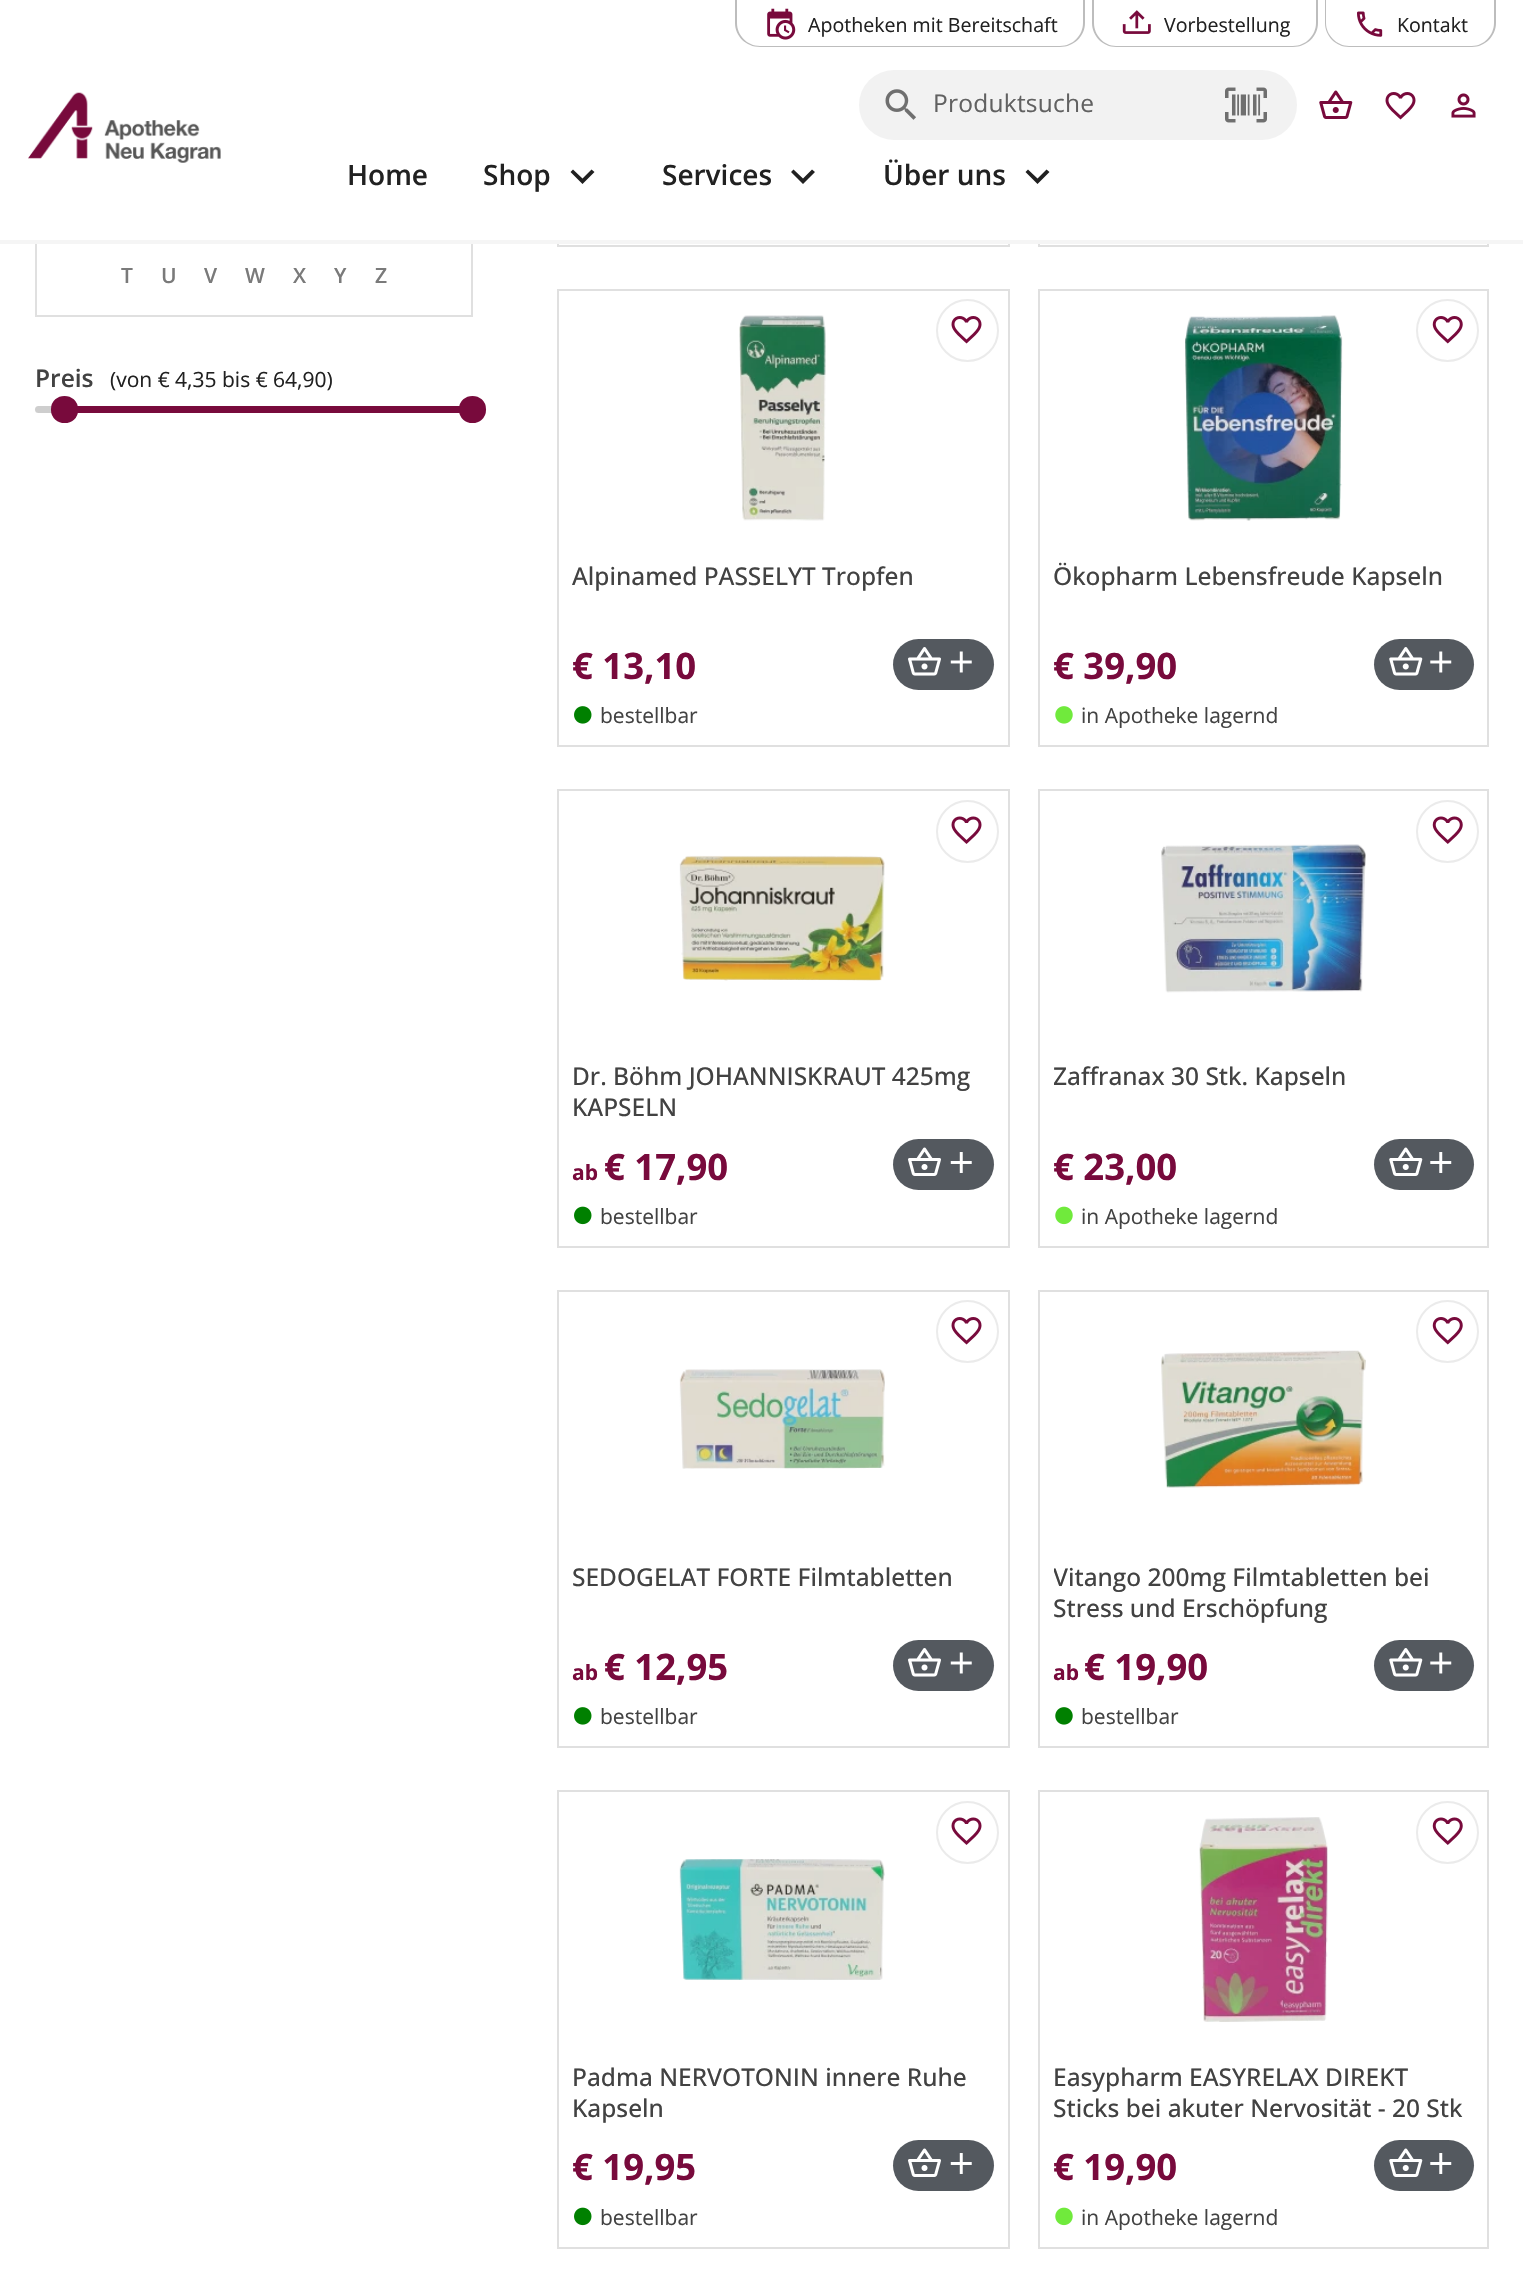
static SkFont makeFont(const char* family, int weight, float size, bool italic = false) {
  SkFontStyle style(weight, SkFontStyle::kNormal_Width,
    italic ? SkFontStyle::kItalic_Slant : SkFontStyle::kUpright_Slant);
  SkFont result(fontMgr->matchFamilyStyle(family, style), size);
  result.setSubpixel(true);
  return result;
}

static void text(SkCanvas* c, const char* s, float x, float y, const SkFont& font, SkColor color) {
  SkPaint ink(SkColor4f::FromColor(color));
  ink.setAntiAlias(true);
  c->drawString(s, x, y, font, ink);
}

static void spacedText(SkCanvas* c, const char* s, float x, float y, const SkFont& font, const SkPaint& ink, float letter, float word) {
  std::vector<SkGlyphID> glyphs(font.countText(s, strlen(s), SkTextEncoding::kUTF8));
  std::vector<float> xs(glyphs.size());
  font.textToGlyphs(s, strlen(s), SkTextEncoding::kUTF8, glyphs);
  font.getXPos(glyphs, xs, x);
  float extra = 0;
  for (size_t i = 0; i < glyphs.size(); i++) {
    xs[i] += extra;
    extra += letter + word * (glyphs[i] == font.unicharToGlyph(' '));
  }
  c->drawTextBlob(SkTextBlob::MakeFromPosHGlyphs(glyphs, xs, y, font), 0, 0, ink);
}

static void box(SkCanvas* c, float l, float t, float r, float b, SkColor color) {
  SkPaint ink(SkColor4f::FromColor(color));
  ink.setAntiAlias(true);
  c->drawRect(SkRect::MakeLTRB(l, t, r, b), ink);
}

static void roundBox(SkCanvas* c, float l, float t, float r, float b, float radius, SkColor color) {
  SkPaint ink(SkColor4f::FromColor(color));
  ink.setAntiAlias(true);
  c->drawRoundRect(SkRect::MakeLTRB(l, t, r, b), radius, radius, ink);
}

static void picture(SkCanvas* c, const char* path, float l, float t, float r, float b) {
  auto image = SkImages::DeferredFromEncodedData(SkData::MakeFromFileName(path));
  c->drawImageRect(image, SkRect::MakeLTRB(l, t, r, b), SkSamplingOptions());
}

void draw(SkCanvas* c) {
  SkPaint paint;
  paint.setAntiAlias(true);
  c->clear(0xffffffff);
  paint.setStyle(SkPaint::kStroke_Style);
  paint.setStrokeWidth(2);
  paint.setColor(0xffe0e0e0);
  c->drawRect(SkRect::MakeLTRB(36, 138, 472, 316), paint);
  c->drawRect(SkRect::MakeLTRB(558, -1, 1009, 246), paint);
  c->drawRect(SkRect::MakeLTRB(1039, -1, 1488, 246), paint);
  box(c, 35, 0, 1489, 240, 0xffffffff);
  box(c, 0, 240, 1523, 244, 0xfff5f5f5);
  paint.setStyle(SkPaint::kFill_Style);
  paint.setColor(0xffbdbdbd);
  c->drawPath(SkPathBuilder(SkPathFillType::kEvenOdd).moveTo(735, -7).lineTo(1085, -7).lineTo(1085, 23).cubicTo(1085, 36, 1074, 47, 1060, 47).lineTo(760, 47).cubicTo(746, 47, 735, 36, 735, 23).close().moveTo(737, -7).lineTo(1083, -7).lineTo(1083, 23).cubicTo(1083, 35, 1073, 46, 1060, 46).lineTo(760, 46).cubicTo(747, 46, 737, 35, 737, 23).close().detach(), paint);
  picture(c, "img_01.png", 767, 8, 796, 40);
  SkFont face1 = makeFont("Open Sans", 400, 19.6f);
  text(c, "Apotheken mit Bereitschaft", 808, 32, face1, 0xff212121);
  c->drawPath(SkPathBuilder(SkPathFillType::kEvenOdd).moveTo(1092, -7).lineTo(1318, -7).lineTo(1318, 23).cubicTo(1318, 36, 1307, 47, 1293, 47).lineTo(1116, 47).cubicTo(1103, 47, 1092, 36, 1092, 23).close().moveTo(1094, -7).lineTo(1316, -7).lineTo(1316, 23).cubicTo(1316, 35, 1306, 46, 1293, 46).lineTo(1116, 46).cubicTo(1104, 46, 1094, 35, 1094, 23).close().detach(), paint);
  picture(c, "img_02.png", 1122, 10, 1151, 34);
  text(c, "Vorbestellung", 1164, 32, face1, 0xff212121);
  c->drawPath(SkPathBuilder(SkPathFillType::kEvenOdd).moveTo(1325, -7).lineTo(1496, -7).lineTo(1496, 23).cubicTo(1496, 36, 1485, 47, 1472, 47).lineTo(1349, 47).cubicTo(1336, 47, 1325, 36, 1325, 23).close().moveTo(1326, -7).lineTo(1494, -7).lineTo(1494, 23).cubicTo(1494, 35, 1484, 46, 1472, 46).lineTo(1349, 46).cubicTo(1337, 46, 1326, 35, 1326, 23).close().detach(), paint);
  picture(c, "img_03.png", 1357, 11, 1383, 37);
  text(c, "Kontakt", 1397, 32, face1, 0xff212121);
  picture(c, "img_04.png", 28, 92, 221, 163);
  roundBox(c, 859, 70, 1297, 140, 35, 0xfff2f2f2);
  picture(c, "img_05.png", 885, 89, 916, 120);
  SkFont face2 = makeFont("Open Sans", 400, 24.5f);
  paint.setColor(0xff616161);
  spacedText(c, "Produktsuche", 933, 112, face2, paint, 0.25f, 0);
  picture(c, "img_06.png", 1225, 87, 1267, 123);
  picture(c, "img_07.png", 1319, 90, 1353, 119);
  picture(c, "img_08.png", 1385, 92, 1416, 120);
  picture(c, "img_09.png", 1451, 93, 1476, 118);
  SkFont face3 = makeFont("Open Sans", 600, 28);
  text(c, "Home", 347, 185, face3, 0xff212121);
  text(c, "Shop", 483, 185, face3, 0xff212121);
  paint.setColor(0xff212121);
  c->drawPath(SkPathBuilder().moveTo(573, 169.5f).lineTo(582.5f, 178.5f).lineTo(591.5f, 169.5f).lineTo(594.5f, 172).lineTo(582.5f, 184).lineTo(570.5f, 172).close().detach(), paint);
  text(c, "Services", 662, 185, face3, 0xff212121);
  c->drawPath(SkPathBuilder().moveTo(793.5f, 169.5f).lineTo(803, 178.5f).lineTo(812, 169.5f).lineTo(815, 172).lineTo(803, 184).lineTo(791, 172).close().detach(), paint);
  text(c, "Über uns", 883, 185, face3, 0xff212121);
  c->drawPath(SkPathBuilder().moveTo(1028, 169.5f).lineTo(1037.5f, 178.5f).lineTo(1046.5f, 169.5f).lineTo(1049.5f, 172).lineTo(1037.5f, 184).lineTo(1025.5f, 172).close().detach(), paint);
  SkFont face4 = makeFont("Open Sans", 600, 21);
  text(c, "T", 121, 283, face4, 0xff7a7a7a);
  text(c, "U", 161, 283, face4, 0xff7a7a7a);
  text(c, "V", 204, 283, face4, 0xff7a7a7a);
  text(c, "W", 245, 283, face4, 0xff7a7a7a);
  text(c, "X", 293, 283, face4, 0xff7a7a7a);
  text(c, "Y", 334, 283, face4, 0xff7a7a7a);
  text(c, "Z", 375, 283, face4, 0xff7a7a7a);
  SkFont face5 = makeFont("Open Sans", 600, 24.5f);
  text(c, "Preis", 35, 387, face5, 0xff424242);
  SkFont face6 = makeFont("Open Sans", 400, 21);
  text(c, "(von € 4,35 bis € 64,90)", 110, 387, face6, 0xff212121);
  roundBox(c, 35, 406, 473, 413, 3.5f, 0xffe6e6e6);
  roundBox(c, 35, 406, 473, 413, 3.5f, 0x1a000000);
  box(c, 77, 406, 460, 413, 0xff780a3c);
  paint.setColor(0xff780a3c);
  c->drawPath(SkPathBuilder().moveTo(54, 409.5f).cubicTo(54, 423.5f, 75.5f, 423.5f, 75, 409.5f).cubicTo(75, 395.5f, 54, 395.5f, 54, 409.5f).detach(), paint);
  paint.setStyle(SkPaint::kStroke_Style);
  paint.setStrokeWidth(6.1f);
  c->drawPath(SkPathBuilder().moveTo(54, 409.5f).cubicTo(54, 423.5f, 75.5f, 423.5f, 75, 409.5f).cubicTo(75, 395.5f, 54, 395.5f, 54, 409.5f).detach(), paint);
  paint.setStyle(SkPaint::kFill_Style);
  c->drawPath(SkPathBuilder().moveTo(462, 409.5f).cubicTo(462, 423.5f, 483, 423.5f, 483, 409.5f).cubicTo(483, 395.5f, 462, 395.5f, 462, 409.5f).detach(), paint);
  paint.setStyle(SkPaint::kStroke_Style);
  c->drawPath(SkPathBuilder().moveTo(462, 409.5f).cubicTo(462, 423.5f, 483, 423.5f, 483, 409.5f).cubicTo(483, 395.5f, 462, 395.5f, 462, 409.5f).detach(), paint);
  paint.setStrokeWidth(2);
  paint.setColor(0xffe0e0e0);
  c->drawRect(SkRect::MakeLTRB(558, 290, 1009, 746), paint);
  picture(c, "img_10.png", 739, 315, 826, 521);
  paint.setColor(0xffebebeb);
  c->drawCircle(967.5f, 330.5f, 30.5f, paint);
  picture(c, "img_08.png", 951, 316, 982, 344);
  SkFont face7 = makeFont("Open Sans", 500, 24.5f);
  text(c, "Alpinamed PASSELYT Tropfen", 572, 585, face7, 0xff424242);
  SkFont face8 = makeFont("Open Sans", 700, 36.5f);
  text(c, "€ 13,10", 572, 679, face8, 0xff780a3c);
  roundBox(c, 893, 639, 994, 690, 25.5f, 0xff54595f);
  picture(c, "img_11.png", 908, 647, 941, 676);
  picture(c, "img_12.png", 950, 651, 972, 673);
  picture(c, "img_13.png", 574, 706, 592, 724);
  text(c, "bestellbar", 600, 723, face6, 0xff424242);
  paint.setColor(0xffe0e0e0);
  c->drawRect(SkRect::MakeLTRB(1039, 290, 1488, 746), paint);
  picture(c, "img_14.png", 1185, 315, 1343, 521);
  paint.setColor(0xffebebeb);
  c->drawCircle(1447.5f, 330.5f, 30.5f, paint);
  picture(c, "img_15.png", 1432, 316, 1463, 344);
  text(c, "Ökopharm Lebensfreude Kapseln", 1053, 585, face7, 0xff424242);
  text(c, "€ 39,90", 1053, 679, face8, 0xff780a3c);
  roundBox(c, 1374, 639, 1474, 690, 25.5f, 0xff54595f);
  picture(c, "img_16.png", 1389, 647, 1423, 676);
  picture(c, "img_17.png", 1430, 651, 1452, 673);
  picture(c, "img_18.png", 1055, 706, 1073, 724);
  text(c, "in Apotheke lagernd", 1081, 723, face6, 0xff424242);
  paint.setColor(0xffe0e0e0);
  c->drawRect(SkRect::MakeLTRB(558, 790, 1009, 1247), paint);
  paint.setColor(0xffebebeb);
  c->drawCircle(967.5f, 831.5f, 30.5f, paint);
  picture(c, "img_19.png", 951, 816, 982, 844);
  picture(c, "img_20.png", 679, 855, 885, 981);
  text(c, "Dr. Böhm JOHANNISKRAUT 425mg", 572, 1085, face7, 0xff424242);
  text(c, "KAPSELN", 572, 1116, face7, 0xff424242);
  SkFont face9 = makeFont("Open Sans", 700, 21);
  text(c, "ab", 572, 1180, face9, 0xff780a3c);
  text(c, "€ 17,90", 604, 1180, face8, 0xff780a3c);
  roundBox(c, 893, 1139, 994, 1190, 25.5f, 0xff54595f);
  picture(c, "img_21.png", 908, 1147, 941, 1176);
  picture(c, "img_22.png", 950, 1152, 972, 1173);
  picture(c, "img_23.png", 574, 1206, 592, 1225);
  text(c, "bestellbar", 600, 1224, face6, 0xff424242);
  paint.setColor(0xffe0e0e0);
  c->drawRect(SkRect::MakeLTRB(1039, 790, 1488, 1247), paint);
  paint.setColor(0xffebebeb);
  c->drawCircle(1447.5f, 831.5f, 30.5f, paint);
  picture(c, "img_24.png", 1432, 816, 1463, 844);
  picture(c, "img_25.png", 1161, 844, 1366, 993);
  c->save();
  c->clipRect(SkRect::MakeLTRB(1054, 1061, 1474, 1125));
  text(c, "Zaffranax 30 Stk. Kapseln", 1053, 1085, face7, 0xff424242);
  c->restore();
  text(c, "€ 23,00", 1053, 1180, face8, 0xff780a3c);
  roundBox(c, 1374, 1139, 1474, 1190, 25.5f, 0xff54595f);
  picture(c, "img_26.png", 1389, 1147, 1423, 1176);
  picture(c, "img_27.png", 1430, 1152, 1452, 1173);
  picture(c, "img_28.png", 1055, 1206, 1073, 1225);
  text(c, "in Apotheke lagernd", 1081, 1224, face6, 0xff424242);
  paint.setColor(0xffe0e0e0);
  c->drawRect(SkRect::MakeLTRB(558, 1291, 1009, 1747), paint);
  paint.setColor(0xffebebeb);
  c->drawCircle(967.5f, 1331.5f, 30.5f, paint);
  picture(c, "img_08.png", 951, 1317, 982, 1345);
  picture(c, "img_29.png", 679, 1369, 885, 1469);
  text(c, "SEDOGELAT FORTE Filmtabletten", 572, 1586, face7, 0xff424242);
  text(c, "ab", 572, 1680, face9, 0xff780a3c);
  text(c, "€ 12,95", 604, 1680, face8, 0xff780a3c);
  roundBox(c, 893, 1640, 994, 1691, 25.5f, 0xff54595f);
  picture(c, "img_11.png", 908, 1648, 941, 1677);
  picture(c, "img_12.png", 950, 1652, 972, 1674);
  picture(c, "img_13.png", 574, 1707, 592, 1725);
  text(c, "bestellbar", 600, 1724, face6, 0xff424242);
  paint.setColor(0xffe0e0e0);
  c->drawRect(SkRect::MakeLTRB(1039, 1291, 1488, 1747), paint);
  paint.setColor(0xffebebeb);
  c->drawCircle(1447.5f, 1331.5f, 30.5f, paint);
  picture(c, "img_15.png", 1432, 1317, 1463, 1345);
  picture(c, "img_30.png", 1161, 1350, 1366, 1488);
  c->save();
  c->clipRect(SkRect::MakeLTRB(1054, 1561, 1474, 1626));
  text(c, "Vitango 200mg Filmtabletten bei", 1053, 1586, face7, 0xff424242);
  text(c, "Stress und Erschöpfung", 1053, 1617, face7, 0xff424242);
  c->restore();
  text(c, "ab", 1053, 1680, face9, 0xff780a3c);
  text(c, "€ 19,90", 1084, 1680, face8, 0xff780a3c);
  roundBox(c, 1374, 1640, 1474, 1691, 25.5f, 0xff54595f);
  picture(c, "img_16.png", 1389, 1648, 1423, 1677);
  picture(c, "img_17.png", 1430, 1652, 1452, 1674);
  picture(c, "img_31.png", 1055, 1707, 1073, 1725);
  text(c, "bestellbar", 1081, 1724, face6, 0xff424242);
  paint.setColor(0xffe0e0e0);
  c->drawRect(SkRect::MakeLTRB(558, 1791, 1009, 2248), paint);
  paint.setColor(0xffebebeb);
  c->drawCircle(967.5f, 1832.5f, 30.5f, paint);
  picture(c, "img_19.png", 951, 1817, 982, 1845);
  picture(c, "img_32.png", 679, 1859, 885, 1980);
  text(c, "Padma NERVOTONIN innere Ruhe", 572, 2086, face7, 0xff424242);
  text(c, "Kapseln", 572, 2117, face7, 0xff424242);
  text(c, "€ 19,95", 572, 2180, face8, 0xff780a3c);
  roundBox(c, 893, 2140, 994, 2191, 25.5f, 0xff54595f);
  picture(c, "img_21.png", 908, 2148, 941, 2177);
  picture(c, "img_22.png", 950, 2153, 972, 2174);
  picture(c, "img_23.png", 574, 2207, 592, 2226);
  text(c, "bestellbar", 600, 2225, face6, 0xff424242);
  paint.setColor(0xffe0e0e0);
  c->drawRect(SkRect::MakeLTRB(1039, 1791, 1488, 2248), paint);
  picture(c, "img_33.png", 1199, 1817, 1328, 2022);
  paint.setColor(0xffebebeb);
  c->drawCircle(1447.5f, 1832.5f, 30.5f, paint);
  picture(c, "img_24.png", 1432, 1817, 1463, 1845);
  text(c, "Easypharm EASYRELAX DIREKT", 1053, 2086, face7, 0xff424242);
  c->save();
  c->clipRect(SkRect::MakeLTRB(1054, 2062, 1474, 2126));
  text(c, "Sticks bei akuter Nervosität - 20 Stk", 1053, 2117, face7, 0xff424242);
  c->restore();
  text(c, "€ 19,90", 1053, 2180, face8, 0xff780a3c);
  roundBox(c, 1374, 2140, 1474, 2191, 25.5f, 0xff54595f);
  picture(c, "img_26.png", 1389, 2148, 1423, 2177);
  picture(c, "img_27.png", 1430, 2153, 1452, 2174);
  picture(c, "img_28.png", 1055, 2207, 1073, 2226);
  text(c, "in Apotheke lagernd", 1081, 2225, face6, 0xff424242);
}
